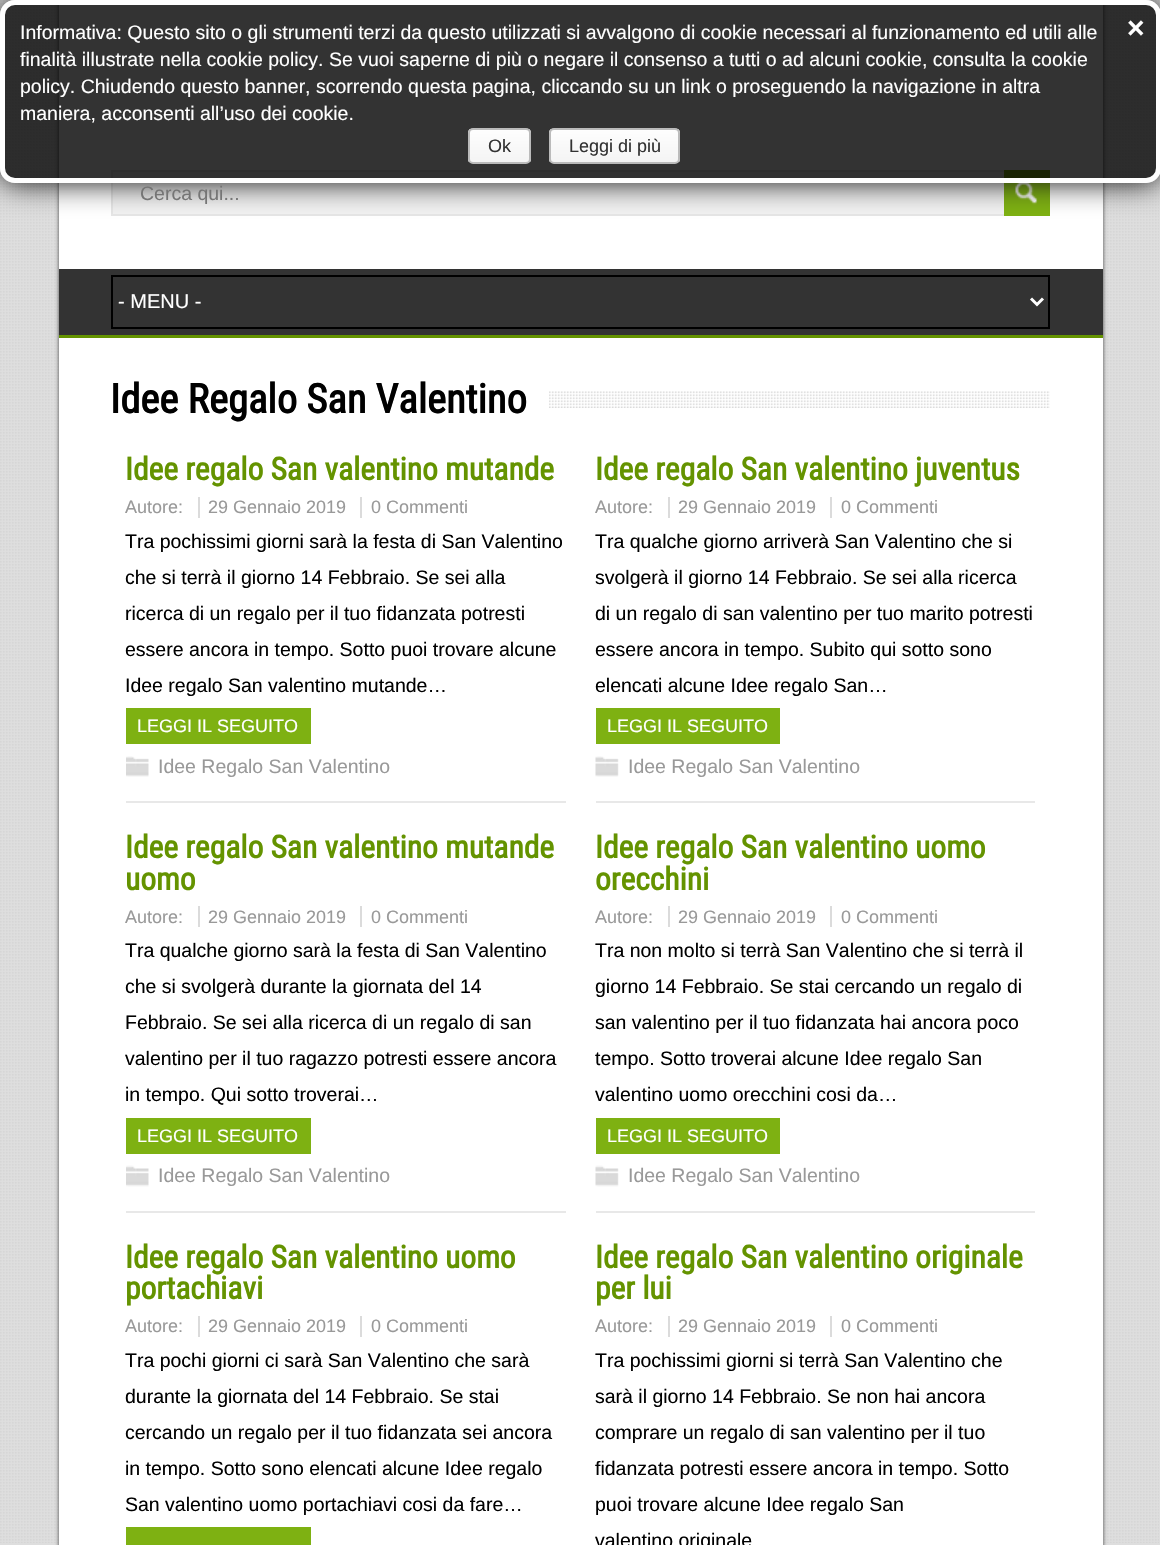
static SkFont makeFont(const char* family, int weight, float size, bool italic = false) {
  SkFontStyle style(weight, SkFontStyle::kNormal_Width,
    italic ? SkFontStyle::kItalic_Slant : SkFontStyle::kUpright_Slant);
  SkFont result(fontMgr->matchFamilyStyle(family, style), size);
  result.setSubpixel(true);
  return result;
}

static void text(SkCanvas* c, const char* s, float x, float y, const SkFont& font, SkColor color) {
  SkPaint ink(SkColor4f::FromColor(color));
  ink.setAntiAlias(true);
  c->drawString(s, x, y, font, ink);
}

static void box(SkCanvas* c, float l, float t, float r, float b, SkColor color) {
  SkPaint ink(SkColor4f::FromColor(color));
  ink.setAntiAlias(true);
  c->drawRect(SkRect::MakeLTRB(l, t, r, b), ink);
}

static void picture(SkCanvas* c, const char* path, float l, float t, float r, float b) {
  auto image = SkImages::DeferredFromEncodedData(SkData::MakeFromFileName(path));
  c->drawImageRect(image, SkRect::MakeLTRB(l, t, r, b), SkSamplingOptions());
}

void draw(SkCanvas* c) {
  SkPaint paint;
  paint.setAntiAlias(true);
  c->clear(0xffdedede);
  picture(c, "img_01.png", 0, 0, 1159, 1543);
  paint.setColor(0xff444444);
  paint.setMaskFilter(SkMaskFilter::MakeBlur(kNormal_SkBlurStyle, 2));
  c->drawRect(SkRect::MakeLTRB(59, 0, 1103, 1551), paint);
  paint.setMaskFilter(nullptr);
  box(c, 59, 5, 1103, 1545, 0xffffffff);
  box(c, 113, 172, 1004, 214, 0xfff2f2f2);
  paint.setStyle(SkPaint::kStroke_Style);
  paint.setStrokeWidth(2);
  paint.setColor(0xffe6e6e6);
  c->drawRect(SkRect::MakeLTRB(112, 171, 1043, 215), paint);
  box(c, 1004, 170, 1050, 216, 0xff7eb112);
  picture(c, "img_02.png", 1015, 183, 1038, 205);
  c->save();
  c->clipPath(SkPathBuilder(SkPathFillType::kEvenOdd).moveTo(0, 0).lineTo(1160, 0).lineTo(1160, 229).lineTo(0, 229).close().moveTo(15, 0).lineTo(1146, 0).cubicTo(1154.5f, 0, 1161, 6.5f, 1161, 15).lineTo(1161, 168).cubicTo(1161, 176.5f, 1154.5f, 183, 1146, 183).lineTo(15, 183).cubicTo(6.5f, 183, 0, 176.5f, 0, 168).lineTo(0, 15).cubicTo(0, 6.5f, 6.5f, 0, 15, 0).close().detach(), true);
  paint.setStyle(SkPaint::kFill_Style);
  paint.setColor(0xff111111);
  paint.setMaskFilter(SkMaskFilter::MakeBlur(kNormal_SkBlurStyle, 15));
  c->drawRoundRect(SkRect::MakeLTRB(0, 0, 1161, 183), 15, 15, paint);
  paint.setMaskFilter(nullptr);
  c->restore();
  paint.setColor(0xcc000000);
  c->drawRoundRect(SkRect::MakeLTRB(2.5f, 2.5f, 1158.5f, 180.5f), 12.5f, 12.5f, paint);
  paint.setStyle(SkPaint::kStroke_Style);
  paint.setStrokeWidth(5);
  paint.setColor(0xffffffff);
  c->drawRoundRect(SkRect::MakeLTRB(2.5f, 2.5f, 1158.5f, 180.5f), 12.5f, 12.5f, paint);
  SkFont face1 = makeFont("Liberation Sans", 400, 19.5f);
  text(c, "Informativa: Questo sito o gli strumenti terzi da questo utilizzati si avvalgono di cookie necessari al funzionamento ed utili alle", 20, 39, face1, 0xffffffff);
  text(c, "finalità illustrate nella cookie policy. Se vuoi saperne di più o negare il consenso a tutti o ad alcuni cookie, consulta la cookie", 20, 66, face1, 0xffffffff);
  text(c, "policy. Chiudendo questo banner, scorrendo questa pagina, cliccando su un link o proseguendo la navigazione in altra", 20, 93, face1, 0xffffffff);
  text(c, "maniera, acconsenti all’uso dei cookie.", 20, 120, face1, 0xffffffff);
  c->save();
  c->clipPath(SkPathBuilder().moveTo(473, 128).lineTo(526, 128).cubicTo(529, 128, 531, 130, 531, 133).lineTo(531, 159).cubicTo(531, 162, 529, 164, 526, 164).lineTo(473, 164).cubicTo(470, 164, 468, 162, 468, 159).lineTo(468, 133).cubicTo(468, 130, 470, 128, 473, 128).close().detach(), true);
  paint.setStyle(SkPaint::kFill_Style);
  {
    const SkColor colors[] = {0xfffefefe, 0xfff4f4f4};
    const float stops[] = {0, 1};
    const SkPoint ends[] = {{500, 129}, {500, 162}};
    paint.setShader(SkGradientShader::MakeLinear(ends, colors, stops, 2, SkTileMode::kClamp));
    paint.setAlpha(255);
  }
  c->drawRect(SkRect::MakeLTRB(468, 129, 531, 162), paint);
  c->restore();
  paint.setStyle(SkPaint::kStroke_Style);
  paint.setStrokeWidth(2);
  paint.setShader(nullptr);
  paint.setColor(0xffbbbbbb);
  c->drawRoundRect(SkRect::MakeLTRB(469, 129, 530, 163), 4, 4, paint);
  SkFont face2 = makeFont("Liberation Sans", 400, 18);
  text(c, "Ok", 488, 152, face2, 0xff333333);
  c->save();
  c->clipPath(SkPathBuilder().moveTo(554, 128).lineTo(675, 128).cubicTo(678, 128, 680, 130, 680, 133).lineTo(680, 159).cubicTo(680, 162, 678, 164, 675, 164).lineTo(554, 164).cubicTo(551, 164, 549, 162, 549, 159).lineTo(549, 133).cubicTo(549, 130, 551, 128, 554, 128).close().detach(), true);
  paint.setStyle(SkPaint::kFill_Style);
  {
    const SkColor colors[] = {0xfffefefe, 0xfff4f4f4};
    const float stops[] = {0, 1};
    const SkPoint ends[] = {{614, 129}, {614, 162}};
    paint.setShader(SkGradientShader::MakeLinear(ends, colors, stops, 2, SkTileMode::kClamp));
    paint.setAlpha(255);
  }
  c->drawRect(SkRect::MakeLTRB(549, 129, 680, 162), paint);
  c->restore();
  paint.setStyle(SkPaint::kStroke_Style);
  paint.setShader(nullptr);
  paint.setColor(0xffbbbbbb);
  c->drawRoundRect(SkRect::MakeLTRB(550, 129, 679, 163), 4, 4, paint);
  text(c, "Leggi di più", 569, 152, face2, 0xff333333);
  SkFont face3 = makeFont("Liberation Sans", 700, 30);
  text(c, "×", 1127, 38, face3, 0xffffffff);
  text(c, "Cerca qui...", 140, 200, face1, 0xff757575);
  box(c, 59, 269, 1103, 335, 0xff333333);
  box(c, 59, 335, 1103, 338, 0xff649300);
  paint.setColor(0xff000000);
  c->drawRect(SkRect::MakeLTRB(112, 276, 1049, 328), paint);
  paint.setStrokeWidth(3);
  paint.setColor(0xffffffff);
  c->drawPath(SkPathBuilder().moveTo(1031, 298.5f).lineTo(1037, 304.5f).lineTo(1043, 298.5f).detach(), paint);
  SkFont face4 = makeFont("Liberation Sans", 400, 20);
  text(c, "- MENU -", 118, 308, face4, 0xffffffff);
  picture(c, "img_03.png", 549, 391, 1050, 408);
  SkFont face5 = makeFont("Roboto Condensed", 700, 40.5f);
  text(c, "Idee Regalo San Valentino", 110, 413, face5, 0xff000000);
  box(c, 126, 801, 566, 803, 0xffe8e8e8);
  SkFont face6 = makeFont("Roboto Condensed", 700, 31.5f);
  text(c, "Idee regalo San valentino mutande", 125, 480, face6, 0xff649300);
  text(c, "Autore:", 125, 513, face2, 0xff999999);
  text(c, "29 Gennaio 2019", 208, 513, face2, 0xff999999);
  box(c, 198, 497, 200, 518, 0xffdbdbdb);
  text(c, "0 Commenti", 371, 513, face2, 0xff999999);
  box(c, 360, 497, 362, 518, 0xffdbdbdb);
  text(c, "Tra pochissimi giorni sarà la festa di San Valentino", 125, 548, face1, 0xff000000);
  text(c, "che si terrà il giorno 14 Febbraio. Se sei alla", 125, 584, face1, 0xff000000);
  text(c, "ricerca di un regalo per il tuo fidanzata potresti", 125, 620, face1, 0xff000000);
  text(c, "essere ancora in tempo. Sotto puoi trovare alcune", 125, 656, face1, 0xff000000);
  text(c, "Idee regalo San valentino mutande…", 125, 692, face1, 0xff000000);
  box(c, 126, 708, 311, 744, 0xff7eb112);
  text(c, "LEGGI IL SEGUITO", 137, 732, face2, 0xffffffff);
  picture(c, "img_04.png", 126, 756, 149, 777);
  text(c, "Idee Regalo San Valentino", 158, 773, face1, 0xff999999);
  box(c, 596, 801, 1035, 803, 0xffe8e8e8);
  text(c, "Idee regalo San valentino juventus", 595, 480, face6, 0xff649300);
  text(c, "Autore:", 595, 513, face2, 0xff999999);
  text(c, "29 Gennaio 2019", 678, 513, face2, 0xff999999);
  box(c, 668, 497, 670, 518, 0xffdbdbdb);
  text(c, "0 Commenti", 841, 513, face2, 0xff999999);
  box(c, 830, 497, 832, 518, 0xffdbdbdb);
  text(c, "Tra qualche giorno arriverà San Valentino che si", 595, 548, face1, 0xff000000);
  text(c, "svolgerà il giorno 14 Febbraio. Se sei alla ricerca", 595, 584, face1, 0xff000000);
  text(c, "di un regalo di san valentino per tuo marito potresti", 595, 620, face1, 0xff000000);
  text(c, "essere ancora in tempo. Subito qui sotto sono", 595, 656, face1, 0xff000000);
  text(c, "elencati alcune Idee regalo San…", 595, 692, face1, 0xff000000);
  box(c, 596, 708, 780, 744, 0xff7eb112);
  text(c, "LEGGI IL SEGUITO", 607, 732, face2, 0xffffffff);
  picture(c, "img_05.png", 595, 756, 619, 777);
  text(c, "Idee Regalo San Valentino", 628, 773, face1, 0xff999999);
  box(c, 126, 1211, 566, 1213, 0xffe8e8e8);
  text(c, "Idee regalo San valentino mutande", 125, 858, face6, 0xff649300);
  text(c, "uomo", 125, 890, face6, 0xff649300);
  text(c, "Autore:", 125, 923, face2, 0xff999999);
  text(c, "29 Gennaio 2019", 208, 923, face2, 0xff999999);
  box(c, 198, 906, 200, 927, 0xffdbdbdb);
  text(c, "0 Commenti", 371, 923, face2, 0xff999999);
  box(c, 360, 906, 362, 927, 0xffdbdbdb);
  text(c, "Tra qualche giorno sarà la festa di San Valentino", 125, 957, face1, 0xff000000);
  text(c, "che si svolgerà durante la giornata del 14", 125, 993, face1, 0xff000000);
  text(c, "Febbraio. Se sei alla ricerca di un regalo di san", 125, 1029, face1, 0xff000000);
  text(c, "valentino per il tuo ragazzo potresti essere ancora", 125, 1065, face1, 0xff000000);
  text(c, "in tempo. Qui sotto troverai…", 125, 1101, face1, 0xff000000);
  box(c, 126, 1118, 311, 1154, 0xff7eb112);
  text(c, "LEGGI IL SEGUITO", 137, 1142, face2, 0xffffffff);
  picture(c, "img_06.png", 126, 1165, 149, 1187);
  text(c, "Idee Regalo San Valentino", 158, 1182, face1, 0xff999999);
  box(c, 596, 1211, 1035, 1213, 0xffe8e8e8);
  text(c, "Idee regalo San valentino uomo", 595, 858, face6, 0xff649300);
  text(c, "orecchini", 595, 890, face6, 0xff649300);
  text(c, "Autore:", 595, 923, face2, 0xff999999);
  text(c, "29 Gennaio 2019", 678, 923, face2, 0xff999999);
  box(c, 668, 906, 670, 927, 0xffdbdbdb);
  text(c, "0 Commenti", 841, 923, face2, 0xff999999);
  box(c, 830, 906, 832, 927, 0xffdbdbdb);
  text(c, "Tra non molto si terrà San Valentino che si terrà il", 595, 957, face1, 0xff000000);
  text(c, "giorno 14 Febbraio. Se stai cercando un regalo di", 595, 993, face1, 0xff000000);
  text(c, "san valentino per il tuo fidanzata hai ancora poco", 595, 1029, face1, 0xff000000);
  text(c, "tempo. Sotto troverai alcune Idee regalo San", 595, 1065, face1, 0xff000000);
  text(c, "valentino uomo orecchini cosi da…", 595, 1101, face1, 0xff000000);
  box(c, 596, 1118, 780, 1154, 0xff7eb112);
  text(c, "LEGGI IL SEGUITO", 607, 1142, face2, 0xffffffff);
  picture(c, "img_07.png", 595, 1165, 619, 1187);
  text(c, "Idee Regalo San Valentino", 628, 1182, face1, 0xff999999);
  text(c, "Idee regalo San valentino uomo", 125, 1268, face6, 0xff649300);
  text(c, "portachiavi", 125, 1299, face6, 0xff649300);
  text(c, "Autore:", 125, 1332, face2, 0xff999999);
  text(c, "29 Gennaio 2019", 208, 1332, face2, 0xff999999);
  box(c, 198, 1316, 200, 1337, 0xffdbdbdb);
  text(c, "0 Commenti", 371, 1332, face2, 0xff999999);
  box(c, 360, 1316, 362, 1337, 0xffdbdbdb);
  text(c, "Tra pochi giorni ci sarà San Valentino che sarà", 125, 1367, face1, 0xff000000);
  text(c, "durante la giornata del 14 Febbraio. Se stai", 125, 1403, face1, 0xff000000);
  text(c, "cercando un regalo per il tuo fidanzata sei ancora", 125, 1439, face1, 0xff000000);
  text(c, "in tempo. Sotto sono elencati alcune Idee regalo", 125, 1475, face1, 0xff000000);
  text(c, "San valentino uomo portachiavi cosi da fare…", 125, 1511, face1, 0xff000000);
  box(c, 126, 1527, 311, 1545, 0xff7eb112);
  text(c, "Idee regalo San valentino originale", 595, 1268, face6, 0xff649300);
  text(c, "per lui", 595, 1299, face6, 0xff649300);
  text(c, "Autore:", 595, 1332, face2, 0xff999999);
  text(c, "29 Gennaio 2019", 678, 1332, face2, 0xff999999);
  box(c, 668, 1316, 670, 1337, 0xffdbdbdb);
  text(c, "0 Commenti", 841, 1332, face2, 0xff999999);
  box(c, 830, 1316, 832, 1337, 0xffdbdbdb);
  text(c, "Tra pochissimi giorni si terrà San Valentino che", 595, 1367, face1, 0xff000000);
  text(c, "sarà il giorno 14 Febbraio. Se non hai ancora", 595, 1403, face1, 0xff000000);
  text(c, "comprare un regalo di san valentino per il tuo", 595, 1439, face1, 0xff000000);
  text(c, "fidanzata potresti essere ancora in tempo. Sotto", 595, 1475, face1, 0xff000000);
  text(c, "puoi trovare alcune Idee regalo San", 595, 1511, face1, 0xff000000);
  text(c, "valentino originale", 595, 1547, face1, 0xff000000);
}
